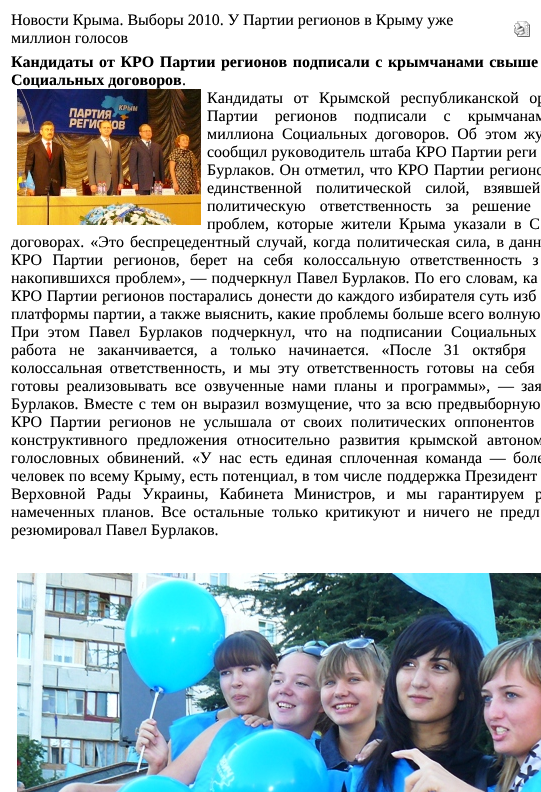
static SkFont makeFont(const char* family, int weight, float size, bool italic = false) {
  SkFontStyle style(weight, SkFontStyle::kNormal_Width,
    italic ? SkFontStyle::kItalic_Slant : SkFontStyle::kUpright_Slant);
  SkFont result(fontMgr->matchFamilyStyle(family, style), size);
  result.setSubpixel(true);
  return result;
}

static void text(SkCanvas* c, const char* s, float x, float y, const SkFont& font, SkColor color) {
  SkPaint ink(SkColor4f::FromColor(color));
  ink.setAntiAlias(true);
  c->drawString(s, x, y, font, ink);
}

static void spacedText(SkCanvas* c, const char* s, float x, float y, const SkFont& font, const SkPaint& ink, float letter, float word) {
  std::vector<SkGlyphID> glyphs(font.countText(s, strlen(s), SkTextEncoding::kUTF8));
  std::vector<float> xs(glyphs.size());
  font.textToGlyphs(s, strlen(s), SkTextEncoding::kUTF8, glyphs);
  font.getXPos(glyphs, xs, x);
  float extra = 0;
  for (size_t i = 0; i < glyphs.size(); i++) {
    xs[i] += extra;
    extra += letter + word * (glyphs[i] == font.unicharToGlyph(' '));
  }
  c->drawTextBlob(SkTextBlob::MakeFromPosHGlyphs(glyphs, xs, y, font), 0, 0, ink);
}

static void picture(SkCanvas* c, const char* path, float l, float t, float r, float b) {
  auto image = SkImages::DeferredFromEncodedData(SkData::MakeFromFileName(path));
  c->drawImageRect(image, SkRect::MakeLTRB(l, t, r, b), SkSamplingOptions());
}

void draw(SkCanvas* c) {
  SkPaint paint;
  paint.setAntiAlias(true);
  c->clear(0xffffffff);
  SkFont face1 = makeFont("Liberation Serif", 400, 16);
  text(c, "Новости Крыма. Выборы 2010. У Партии регионов в Крыму уже", 11, 25, face1, 0xff000000);
  text(c, "миллион голосов", 11, 43, face1, 0xff000000);
  picture(c, "img_01.png", 514, 21, 530, 37);
  SkFont face2 = makeFont("Liberation Serif", 700, 16);
  paint.setColor(0xff000000);
  spacedText(c, "Кандидаты от КРО Партии регионов подписали с крымчанами свыше", 11, 67, face2, paint, 0, 1.5f);
  text(c, "Социальных договоров", 11, 85, face2, 0xff000000);
  text(c, ".", 182, 85, face1, 0xff000000);
  picture(c, "img_02.png", 17, 89, 201, 225);
  spacedText(c, "Кандидаты от Крымской республиканской ор", 207, 103, face1, paint, 0, 6.5f);
  spacedText(c, "Партии регионов", 207, 121, face1, paint, 0, 13);
  spacedText(c, "подписали с крымчанам", 354, 121, face1, paint, 0, 13);
  spacedText(c, "миллиона Социальных договоров. Об этом", 207, 139, face1, paint, 0, 4);
  text(c, "жу", 524, 139, face1, 0xff000000);
  spacedText(c, "сообщил руководитель штаба КРО Партии реги", 207, 157, face1, paint, 0, 0.5f);
  spacedText(c, "Бурлаков. Он отметил, что КРО Партии регионо", 207, 175, face1, paint, 0, 1);
  text(c, "единственной", 207, 193, face1, 0xff000000);
  spacedText(c, "политической силой, взявшей", 316, 193, face1, paint, 0, 10);
  spacedText(c, "политическую ответственность за", 207, 211, face1, paint, 0, 10);
  spacedText(c, "решение", 472, 211, face1, paint, 0, 10);
  spacedText(c, "проблем, которые жители Крыма указали в С", 207, 229, face1, paint, 0, 3.75f);
  spacedText(c, "договорах. «Это беспрецедентный случай, когда политическая сила, в", 11, 247, face1, paint, 0, 2);
  spacedText(c, "данн", 509, 247, face1, paint, 0, 2);
  spacedText(c, "КРО Партии регионов, берет на себя колоссальную", 11, 265, face1, paint, 0, 6.25f);
  spacedText(c, "ответственность з", 410, 265, face1, paint, 0, 6.25f);
  spacedText(c, "накопившихся проблем», — подчеркнул Павел", 11, 283, face1, paint, 0, 1);
  spacedText(c, "Бурлаков. По его словам, ка", 342, 283, face1, paint, 0, 1);
  spacedText(c, "КРО Партии регионов постарались", 11, 301, face1, paint, 0, 0.5f);
  spacedText(c, "донести до каждого избирателя суть изб", 258, 301, face1, paint, 0, 0.5f);
  spacedText(c, "платформы партии, а также выяснить, какие проблемы больше всего волную", 11, 319, face1, paint, 0, 0.25f);
  spacedText(c, "При этом", 11, 337, face1, paint, 0, 4.75f);
  spacedText(c, "Павел Бурлаков подчеркнул, что на подписании Социальных", 89, 337, face1, paint, 0, 4.75f);
  text(c, "работа", 11, 355, face1, 0xff000000);
  spacedText(c, "не заканчивается, а только начинается. «После 31 октября", 69, 355, face1, paint, 0, 8.5f);
  spacedText(c, "колоссальная ответственность, и мы эту ответственность готовы на себя", 11, 373, face1, paint, 0, 3.5f);
  spacedText(c, "готовы реализовывать все озвученные нами планы и программы», —", 11, 391, face1, paint, 0, 3.75f);
  spacedText(c, "зая", 521, 391, face1, paint, 0, 3.75f);
  spacedText(c, "Бурлаков. Вместе с тем он выразил возмущение, что за всю предвыборную", 11, 409, face1, paint, 0, 1.5f);
  text(c, "КРО", 11, 427, face1, 0xff000000);
  spacedText(c, "Партии регионов не услышала от своих политических оппонентов", 50, 427, face1, paint, 0, 4.25f);
  spacedText(c, "конструктивного предложения относительно развития крымской автоном", 11, 445, face1, paint, 0, 5.5f);
  spacedText(c, "голословных обвинений. «У нас есть единая сплоченная команда —", 11, 463, face1, paint, 0, 3.5f);
  spacedText(c, "боле", 513, 463, face1, paint, 0, 3.5f);
  spacedText(c, "человек по всему Крыму, есть потенциал, в том числе", 11, 481, face1, paint, 0, 0.25f);
  text(c, "поддержка Президент", 387, 481, face1, 0xff000000);
  spacedText(c, "Верховной Рады Украины, Кабинета", 11, 499, face1, paint, 0, 7);
  spacedText(c, "Министров, и мы гарантируем р", 294, 499, face1, paint, 0, 7);
  spacedText(c, "намеченных планов. Все остальные", 11, 517, face1, paint, 0, 3.25f);
  spacedText(c, "только критикуют и ничего не предл", 272, 517, face1, paint, 0, 3.25f);
  text(c, "резюмировал Павел Бурлаков.", 11, 535, face1, 0xff000000);
  picture(c, "img_03.png", 17, 573, 541, 792);
}
